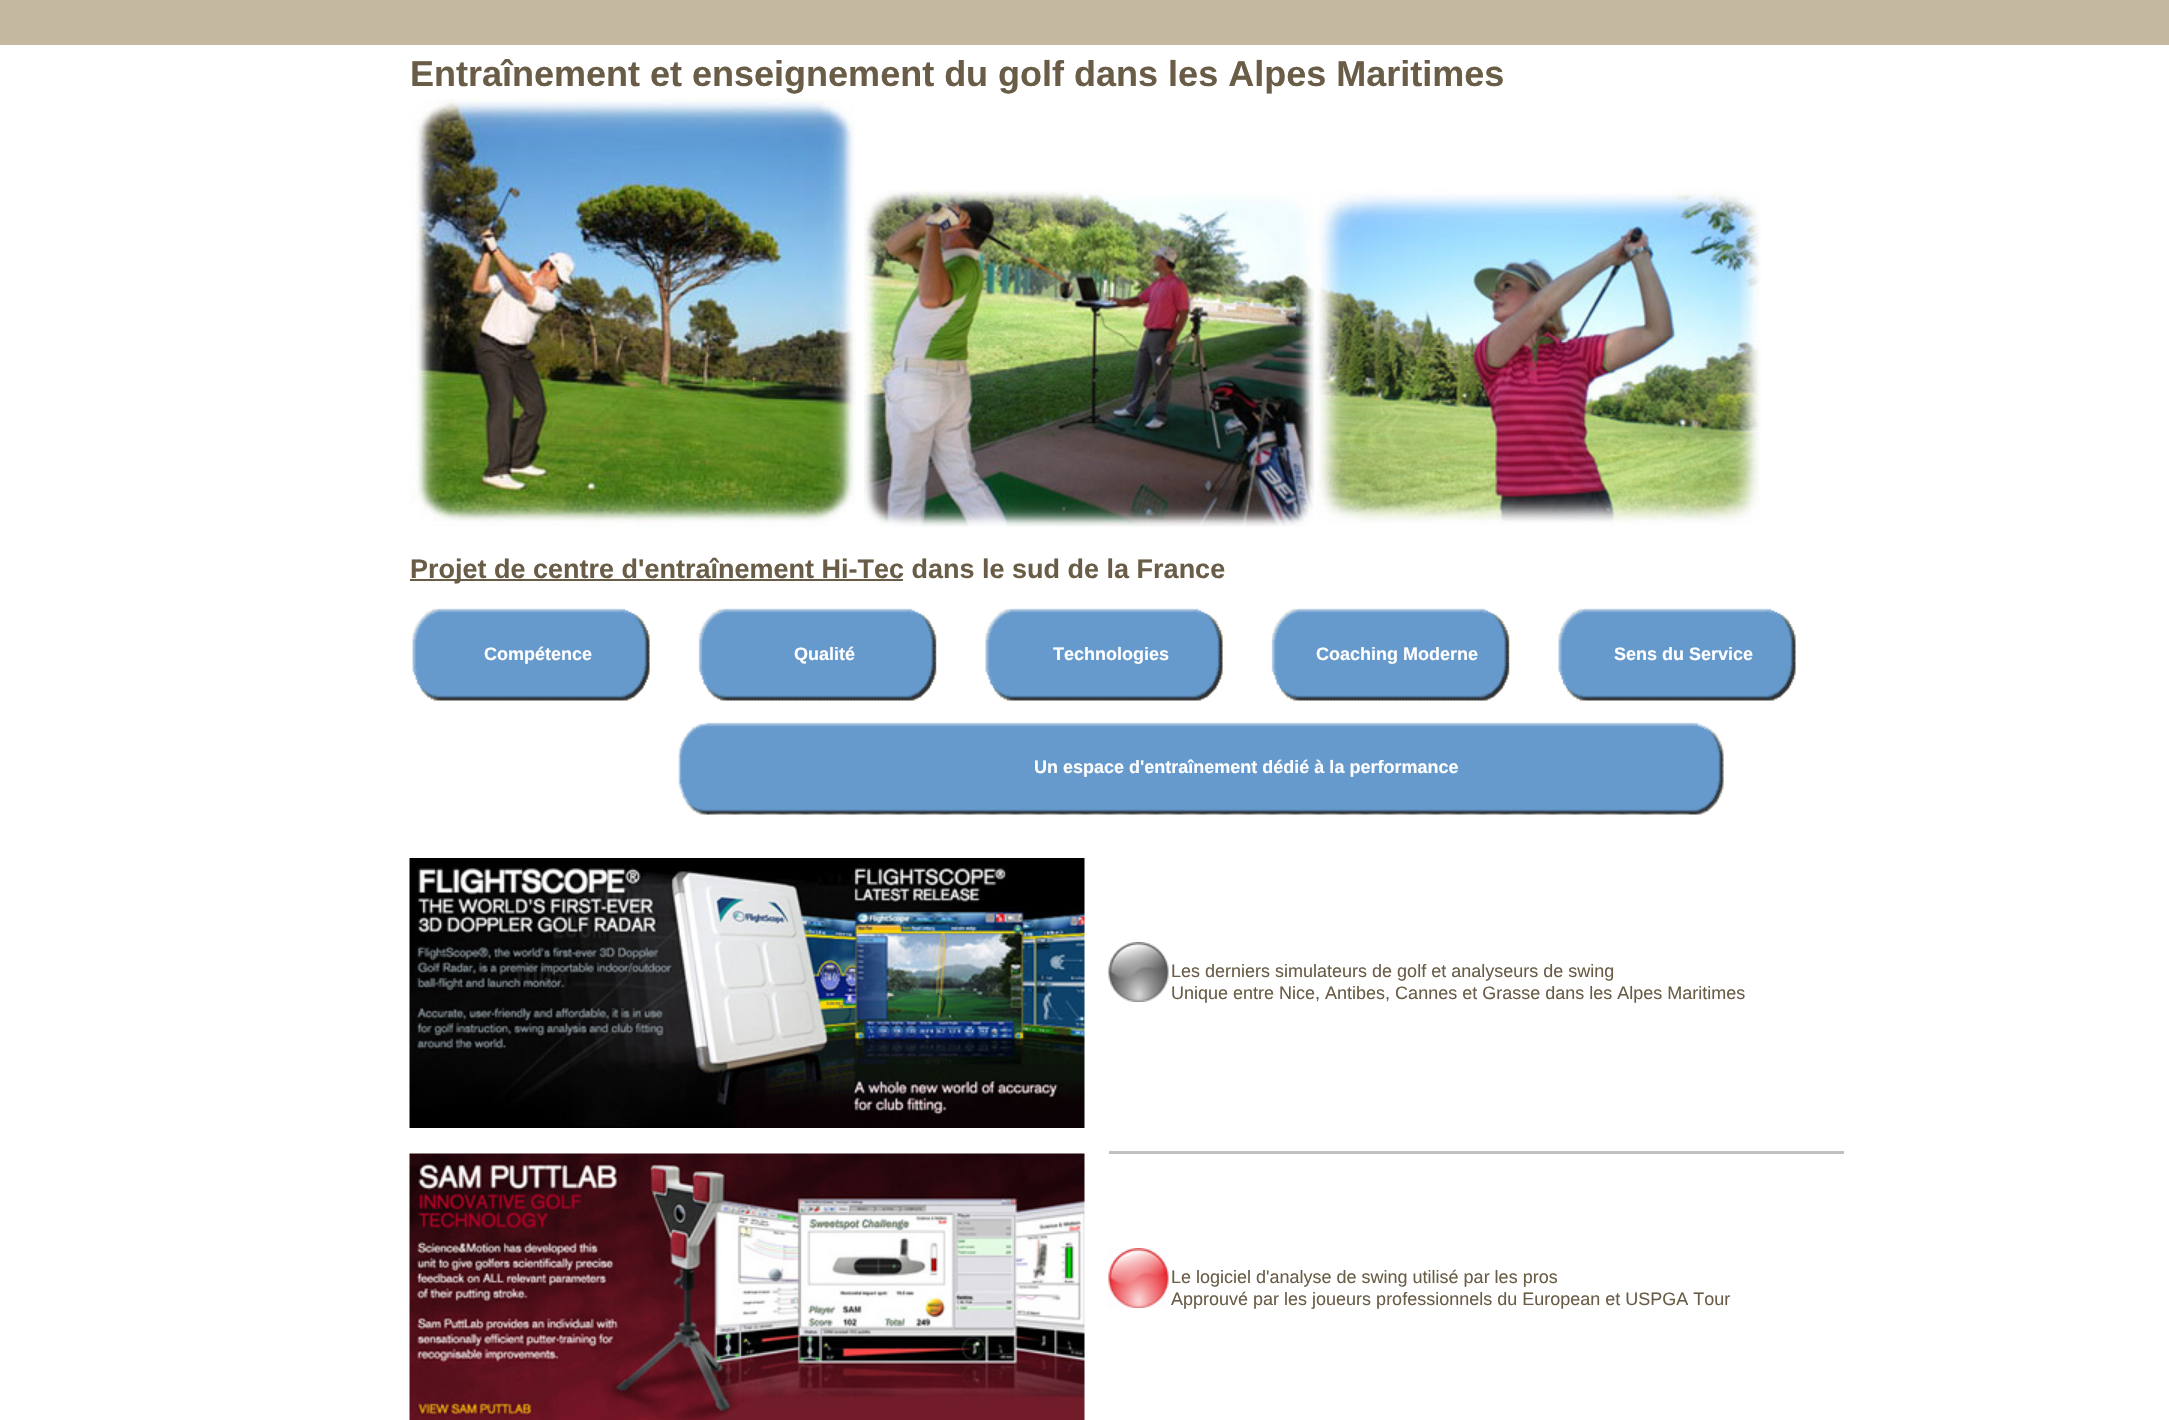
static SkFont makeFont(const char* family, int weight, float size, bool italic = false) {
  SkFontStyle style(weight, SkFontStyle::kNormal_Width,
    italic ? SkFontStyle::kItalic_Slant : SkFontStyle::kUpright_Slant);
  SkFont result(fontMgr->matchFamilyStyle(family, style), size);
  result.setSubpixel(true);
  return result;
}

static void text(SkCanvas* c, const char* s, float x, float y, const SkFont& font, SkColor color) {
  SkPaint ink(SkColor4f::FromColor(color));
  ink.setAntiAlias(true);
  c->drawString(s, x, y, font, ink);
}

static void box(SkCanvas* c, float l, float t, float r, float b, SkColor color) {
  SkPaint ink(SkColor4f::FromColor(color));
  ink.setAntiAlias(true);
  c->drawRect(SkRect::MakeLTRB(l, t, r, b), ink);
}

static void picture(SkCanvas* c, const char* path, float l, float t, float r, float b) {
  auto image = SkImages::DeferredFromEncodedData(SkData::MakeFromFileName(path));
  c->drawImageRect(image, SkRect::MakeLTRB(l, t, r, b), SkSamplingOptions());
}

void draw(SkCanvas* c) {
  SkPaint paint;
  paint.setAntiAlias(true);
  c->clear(0xffc4b8a1);
  box(c, 0, 45, 2169, 1420, 0xffffffff);
  SkFont face1 = makeFont("Liberation Sans", 700, 36);
  text(c, "Entraînement et enseignement du golf dans les Alpes Maritimes", 410, 86, face1, 0xff695d47);
  picture(c, "img_01.png", 409, 98, 856, 527);
  picture(c, "img_02.png", 864, 189, 1314, 527);
  picture(c, "img_03.png", 1314, 189, 1761, 525);
  box(c, 410, 579, 903, 581, 0xff695d47);
  SkFont face2 = makeFont("Liberation Sans", 700, 27);
  text(c, "Projet de centre d'entraînement Hi-Tec dans le sud de la France", 410, 578, face2, 0xff695d47);
  picture(c, "img_04.png", 412, 608, 650, 701);
  SkFont face3 = makeFont("Liberation Sans", 700, 18);
  text(c, "Compétence", 484, 660, face3, 0xffffffff);
  picture(c, "img_05.png", 698, 608, 937, 701);
  text(c, "Qualité", 794, 660, face3, 0xffffffff);
  picture(c, "img_06.png", 985, 608, 1223, 701);
  text(c, "Technologies", 1053, 660, face3, 0xffffffff);
  picture(c, "img_07.png", 1271, 608, 1510, 701);
  text(c, "Coaching Moderne", 1316, 660, face3, 0xffffffff);
  picture(c, "img_06.png", 1558, 608, 1796, 701);
  text(c, "Sens du Service", 1614, 660, face3, 0xffffffff);
  picture(c, "img_08.png", 678, 722, 1724, 815);
  text(c, "Un espace d'entraînement dédié à la performance", 1034, 773, face3, 0xffffffff);
  picture(c, "img_09.png", 409, 858, 1085, 1128);
  picture(c, "img_10.png", 1108, 942, 1169, 1002);
  SkFont face4 = makeFont("Liberation Sans", 400, 18);
  text(c, "Les derniers simulateurs de golf et analyseurs de swing", 1171, 977, face4, 0xff695d47);
  text(c, "Unique entre Nice, Antibes, Cannes et Grasse dans les Alpes Maritimes", 1171, 999, face4, 0xff695d47);
  box(c, 1109, 1151, 1844, 1154, 0xffc0c0c0);
  picture(c, "img_11.png", 409, 1153, 1085, 1420);
  picture(c, "img_12.png", 1108, 1248, 1169, 1308);
  text(c, "Le logiciel d'analyse de swing utilisé par les pros", 1171, 1283, face4, 0xff695d47);
  text(c, "Approuvé par les joueurs professionnels du European et USPGA Tour", 1171, 1305, face4, 0xff695d47);
}
